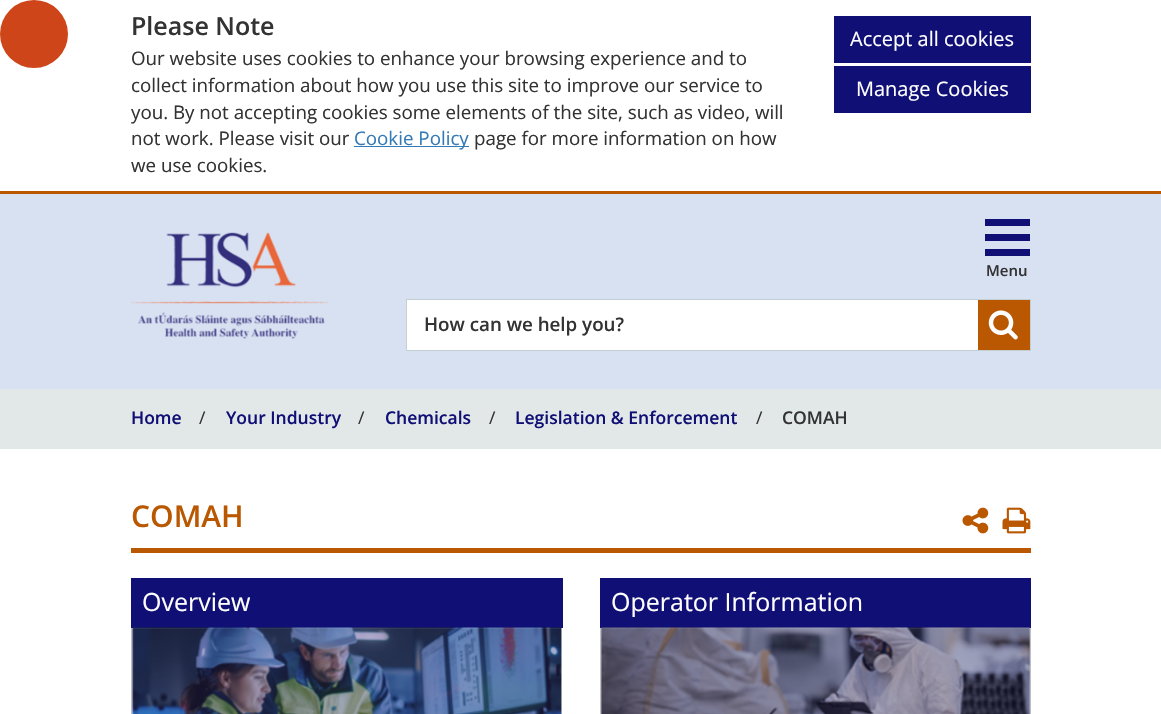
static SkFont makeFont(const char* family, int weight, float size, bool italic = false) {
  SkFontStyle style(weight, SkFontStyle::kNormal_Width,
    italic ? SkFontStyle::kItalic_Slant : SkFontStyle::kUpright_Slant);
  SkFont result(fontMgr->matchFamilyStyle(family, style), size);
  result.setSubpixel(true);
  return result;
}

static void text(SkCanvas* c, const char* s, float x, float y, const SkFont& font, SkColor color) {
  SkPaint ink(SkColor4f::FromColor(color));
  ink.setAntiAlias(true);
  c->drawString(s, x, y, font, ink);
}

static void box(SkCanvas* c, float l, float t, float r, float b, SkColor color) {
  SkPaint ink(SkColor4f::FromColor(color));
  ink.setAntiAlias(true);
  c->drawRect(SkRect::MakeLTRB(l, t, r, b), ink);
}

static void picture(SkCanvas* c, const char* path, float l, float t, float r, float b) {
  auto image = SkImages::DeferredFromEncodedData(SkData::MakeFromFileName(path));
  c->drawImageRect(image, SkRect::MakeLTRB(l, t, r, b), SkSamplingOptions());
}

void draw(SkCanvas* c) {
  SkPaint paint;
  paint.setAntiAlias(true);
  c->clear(0xffffffff);
  paint.setColor(0xffcd4518);
  c->drawCircle(34, 34, 34, paint);
  box(c, 0, 191, 1161, 194, 0xffb95801);
  SkFont face1 = makeFont("Open Sans", 600, 25);
  text(c, "Please Note", 131, 35, face1, 0xff333333);
  SkFont face2 = makeFont("Open Sans", 400, 18.75f);
  text(c, "Our website uses cookies to enhance your browsing experience and to", 131, 65, face2, 0xff333333);
  text(c, "collect information about how you use this site to improve our service to", 131, 92, face2, 0xff333333);
  text(c, "you. By not accepting cookies some elements of the site, such as video, will", 131, 119, face2, 0xff333333);
  text(c, "not work. Please visit our", 131, 145, face2, 0xff333333);
  box(c, 354, 146, 469, 147, 0xff337ab7);
  text(c, "Cookie Policy", 354, 145, face2, 0xff337ab7);
  text(c, "page for more information on how", 474, 145, face2, 0xff333333);
  text(c, "we use cookies.", 131, 172, face2, 0xff333333);
  box(c, 834, 16, 1031, 63, 0xff100f75);
  SkFont face3 = makeFont("Open Sans", 400, 20);
  text(c, "Accept all cookies", 850, 46, face3, 0xffffffff);
  box(c, 834, 66, 1031, 113, 0xff100f75);
  text(c, "Manage Cookies", 856, 96, face3, 0xffffffff);
  box(c, 0, 194, 1161, 389, 0xffd8e1f2);
  picture(c, "img_01.png", 131, 232, 328, 339);
  box(c, 985, 219, 1030, 226, 0xff100f75);
  box(c, 985, 234, 1030, 241, 0xff100f75);
  box(c, 985, 249, 1030, 256, 0xff100f75);
  SkFont face4 = makeFont("Open Sans", 600, 15);
  text(c, "Menu", 986, 276, face4, 0xff333333);
  box(c, 407, 300, 978, 350, 0xffffffff);
  paint.setStyle(SkPaint::kStroke_Style);
  paint.setStrokeWidth(1);
  paint.setColor(0xffc4cfd2);
  c->drawRect(SkRect::MakeLTRB(406.5f, 299.5f, 1030.5f, 350.5f), paint);
  SkFont face5 = makeFont("Open Sans", 600, 18.75f);
  text(c, "How can we help you?", 424, 331, face5, 0xff333333);
  box(c, 978, 300, 1030, 350, 0xffb95801);
  picture(c, "img_02.png", 988, 310, 1018, 340);
  box(c, 0, 389, 1161, 449, 0xffe2e7e8);
  SkFont face6 = makeFont("Open Sans", 600, 17.5f);
  text(c, "Home", 131, 424, face6, 0xff100f75);
  SkFont face7 = makeFont("Open Sans", 400, 17.5f);
  text(c, "/", 199, 424, face7, 0xff333333);
  text(c, "Your Industry", 226, 424, face6, 0xff100f75);
  text(c, "/", 358, 424, face7, 0xff333333);
  text(c, "Chemicals", 385, 424, face6, 0xff100f75);
  text(c, "/", 489, 424, face7, 0xff333333);
  text(c, "Legislation & Enforcement", 515, 424, face6, 0xff100f75);
  text(c, "/", 756, 424, face7, 0xff333333);
  text(c, "COMAH", 782, 424, face6, 0xff333333);
  box(c, 131, 548, 1031, 553, 0xffb95801);
  SkFont face8 = makeFont("Open Sans", 600, 30);
  text(c, "COMAH", 131, 527, face8, 0xffb95801);
  picture(c, "img_03.png", 962, 507, 989, 534);
  picture(c, "img_04.png", 1002, 507, 1031, 534);
  box(c, 131, 578, 563, 628, 0xff100f75);
  SkFont face9 = makeFont("Open Sans", 400, 25);
  text(c, "Overview", 142, 611, face9, 0xffffffff);
  box(c, 561, 628, 562, 714, 0xffbcc0c5);
  box(c, 131, 628, 132, 714, 0xffbcc0c5);
  picture(c, "img_05.png", 132, 627, 562, 714);
  box(c, 600, 578, 1031, 628, 0xff100f75);
  text(c, "Operator Information", 611, 611, face9, 0xffffffff);
  box(c, 1030, 628, 1031, 714, 0xffbcc0c5);
  box(c, 600, 628, 601, 714, 0xffbcc0c5);
  picture(c, "img_06.png", 601, 627, 1030, 714);
}
